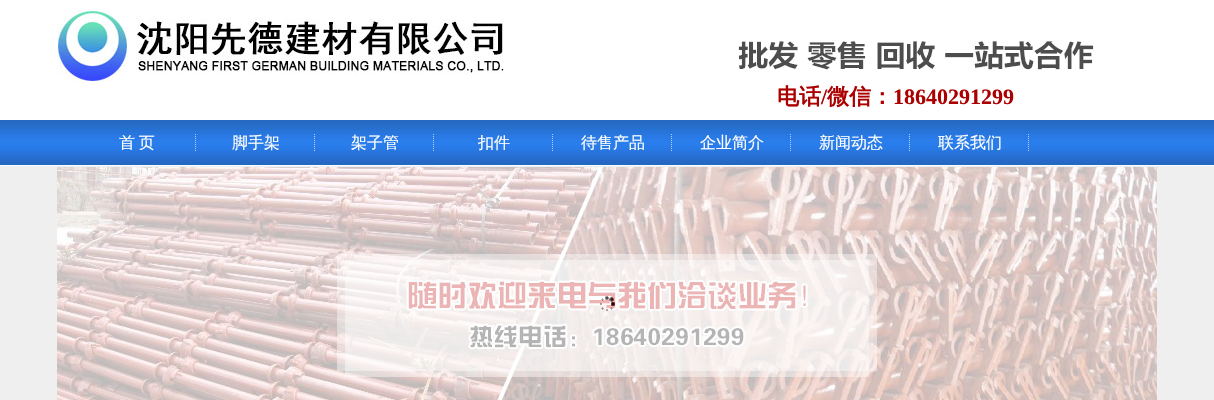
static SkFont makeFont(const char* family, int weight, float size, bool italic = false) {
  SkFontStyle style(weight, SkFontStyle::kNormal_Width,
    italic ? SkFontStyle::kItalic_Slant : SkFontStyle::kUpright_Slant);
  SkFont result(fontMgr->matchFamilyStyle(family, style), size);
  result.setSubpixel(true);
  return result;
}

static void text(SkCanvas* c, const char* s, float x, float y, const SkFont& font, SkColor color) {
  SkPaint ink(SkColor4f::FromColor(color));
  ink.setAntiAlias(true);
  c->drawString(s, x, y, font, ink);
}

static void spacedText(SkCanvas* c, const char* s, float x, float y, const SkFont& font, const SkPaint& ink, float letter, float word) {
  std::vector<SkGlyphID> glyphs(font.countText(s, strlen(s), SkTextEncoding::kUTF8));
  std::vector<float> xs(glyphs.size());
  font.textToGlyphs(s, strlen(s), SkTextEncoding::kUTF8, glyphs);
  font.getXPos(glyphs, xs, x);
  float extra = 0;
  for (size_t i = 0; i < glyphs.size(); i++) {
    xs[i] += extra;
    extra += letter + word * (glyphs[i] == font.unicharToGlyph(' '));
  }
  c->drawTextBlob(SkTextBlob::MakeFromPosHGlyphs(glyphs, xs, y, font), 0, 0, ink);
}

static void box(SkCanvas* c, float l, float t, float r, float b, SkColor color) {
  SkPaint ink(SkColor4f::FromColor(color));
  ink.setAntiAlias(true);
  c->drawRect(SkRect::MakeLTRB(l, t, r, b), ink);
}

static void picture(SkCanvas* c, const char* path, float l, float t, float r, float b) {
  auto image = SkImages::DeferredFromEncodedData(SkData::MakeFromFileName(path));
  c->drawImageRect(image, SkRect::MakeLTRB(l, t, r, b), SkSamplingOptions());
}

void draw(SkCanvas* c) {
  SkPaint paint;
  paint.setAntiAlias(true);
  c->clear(0xffffffff);
  picture(c, "img_01.png", 57, 10, 504, 82);
  picture(c, "img_02.png", 738, 41, 1094, 70);
  SkFont face1 = makeFont("WenQuanYi Zen Hei", 700, 22);
  text(c, "电话", 777, 104, face1, 0xffac0000);
  SkFont face2 = makeFont("Liberation Serif", 700, 22);
  text(c, "/", 821, 104, face2, 0xffac0000);
  text(c, "微信：", 827, 104, face1, 0xffac0000);
  text(c, "18640291299", 893, 104, face2, 0xffac0000);
  picture(c, "img_03.png", 0, 120, 1214, 165);
  picture(c, "img_04.png", 195, 134, 196, 151);
  SkFont face3 = makeFont("WenQuanYi Zen Hei", 500, 16);
  paint.setColor(0xffffffff);
  spacedText(c, "首 页", 119, 148, face3, paint, 0, -1);
  picture(c, "img_04.png", 314, 134, 315, 151);
  text(c, "脚手架", 232, 148, face3, 0xffffffff);
  picture(c, "img_04.png", 433, 134, 434, 151);
  text(c, "架子管", 351, 148, face3, 0xffffffff);
  picture(c, "img_04.png", 552, 134, 553, 151);
  text(c, "扣件", 478, 148, face3, 0xffffffff);
  picture(c, "img_04.png", 671, 134, 672, 151);
  text(c, "待售产品", 581, 148, face3, 0xffffffff);
  picture(c, "img_04.png", 790, 134, 791, 151);
  text(c, "企业简介", 700, 148, face3, 0xffffffff);
  picture(c, "img_04.png", 909, 134, 910, 151);
  text(c, "新闻动态", 819, 148, face3, 0xffffffff);
  picture(c, "img_04.png", 1028, 134, 1029, 151);
  text(c, "联系我们", 938, 148, face3, 0xffffffff);
  box(c, 0, 166, 1214, 400, 0xffefefef);
  picture(c, "img_05.png", 57, 167, 1157, 400);
}
